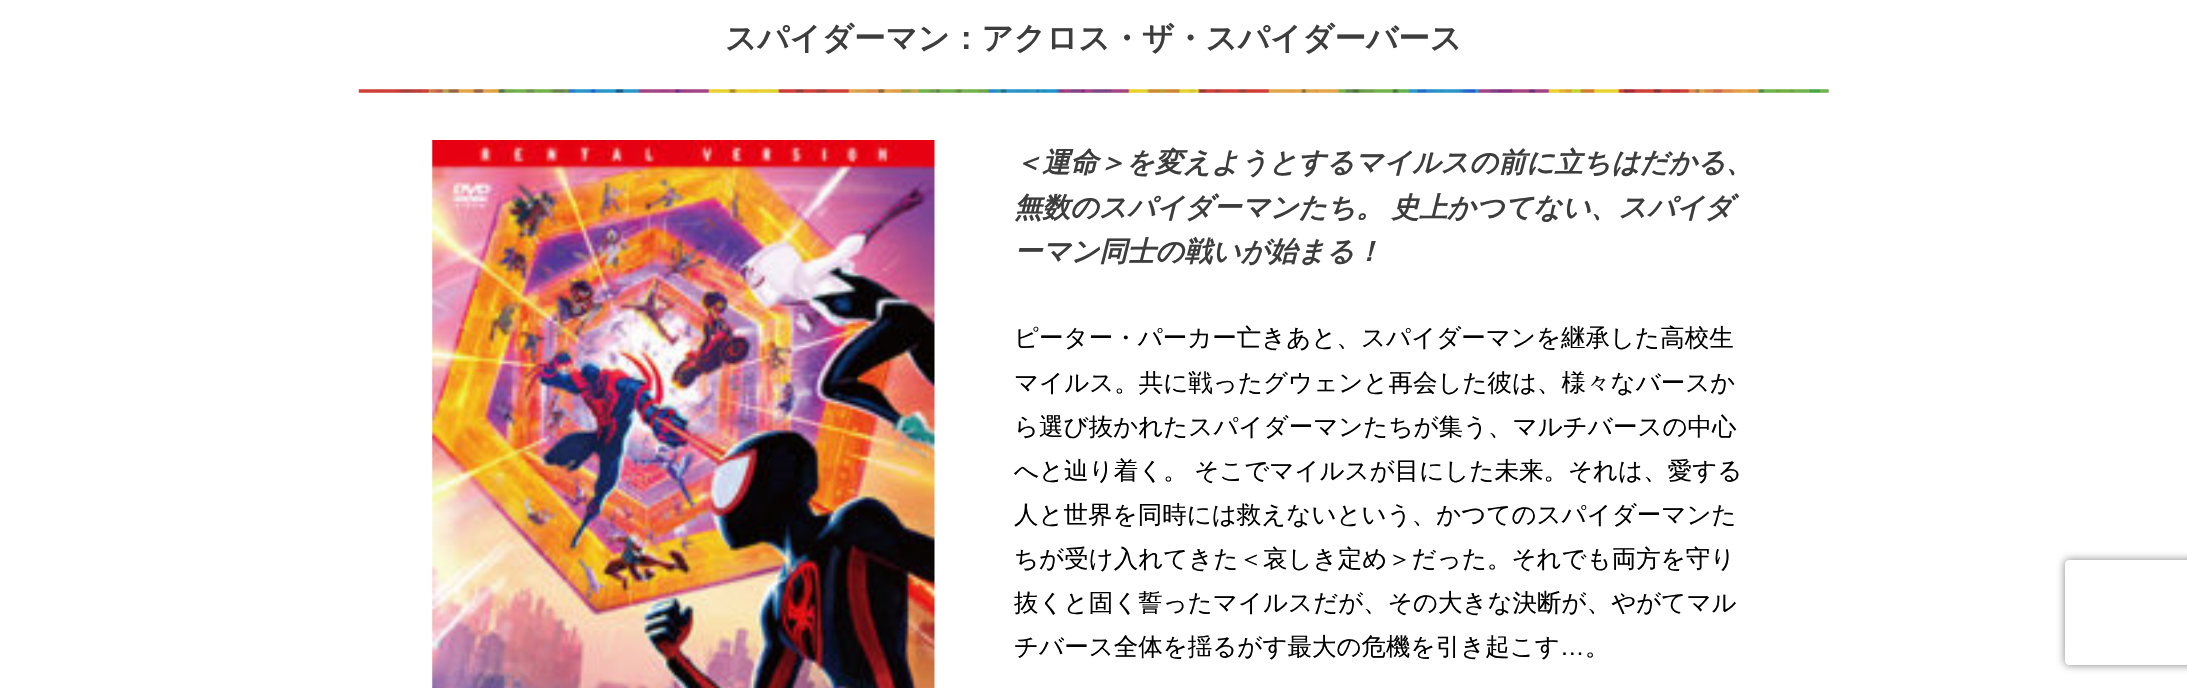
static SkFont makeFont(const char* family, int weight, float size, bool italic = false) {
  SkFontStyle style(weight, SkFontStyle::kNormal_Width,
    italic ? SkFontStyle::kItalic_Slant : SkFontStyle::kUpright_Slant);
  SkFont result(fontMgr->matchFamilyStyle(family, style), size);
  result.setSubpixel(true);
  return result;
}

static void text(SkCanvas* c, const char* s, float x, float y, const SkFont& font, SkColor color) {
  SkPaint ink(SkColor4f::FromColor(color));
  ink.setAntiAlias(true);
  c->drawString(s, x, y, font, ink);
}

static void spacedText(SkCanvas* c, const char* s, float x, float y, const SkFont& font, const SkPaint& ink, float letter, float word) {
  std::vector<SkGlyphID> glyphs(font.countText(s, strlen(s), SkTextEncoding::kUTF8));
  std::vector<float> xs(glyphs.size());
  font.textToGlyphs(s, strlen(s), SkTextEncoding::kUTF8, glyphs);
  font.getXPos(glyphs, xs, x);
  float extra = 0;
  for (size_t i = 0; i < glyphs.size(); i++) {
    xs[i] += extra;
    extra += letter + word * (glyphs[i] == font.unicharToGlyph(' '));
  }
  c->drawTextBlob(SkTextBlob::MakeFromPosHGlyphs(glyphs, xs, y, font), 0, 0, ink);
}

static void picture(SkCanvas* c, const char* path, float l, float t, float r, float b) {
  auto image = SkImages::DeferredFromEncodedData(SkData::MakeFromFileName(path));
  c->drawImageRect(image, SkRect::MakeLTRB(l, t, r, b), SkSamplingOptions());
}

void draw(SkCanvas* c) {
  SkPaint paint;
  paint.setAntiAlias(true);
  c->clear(0xffffffff);
  SkFont face1 = makeFont("WenQuanYi Zen Hei", 700, 31.5f);
  text(c, "スパイダーマン：アクロス・ザ・スパイダーバース", 725, 49, face1, 0xff3d3d3d);
  picture(c, "img_01.png", 358, 89, 1829, 93);
  picture(c, "img_02.png", 432, 140, 935, 688);
  SkFont face2 = makeFont("WenQuanYi Zen Hei", 700, 28, true);
  text(c, "＜運命＞を変えようとするマイルスの前に立ちはだかる、", 1014, 172, face2, 0xff3d3d3d);
  paint.setColor(0xff3d3d3d);
  spacedText(c, "無数のスパイダーマンたち。 史上かつてない、スパイダ", 1014, 217, face2, paint, 0, -1);
  text(c, "ーマン同士の戦いが始まる！", 1014, 261, face2, 0xff3d3d3d);
  SkFont face3 = makeFont("WenQuanYi Zen Hei", 500, 24.5f);
  text(c, "ピーター・パーカー亡きあと、スパイダーマンを継承した高校生", 1014, 346, face3, 0xff000000);
  text(c, "マイルス。共に戦ったグウェンと再会した彼は、様々なバースか", 1014, 391, face3, 0xff000000);
  text(c, "ら選び抜かれたスパイダーマンたちが集う、マルチバースの中心", 1014, 435, face3, 0xff000000);
  paint.setColor(0xff000000);
  spacedText(c, "へと辿り着く。 そこでマイルスが目にした未来。それは、愛する", 1014, 479, face3, paint, 0, -1);
  text(c, "人と世界を同時には救えないという、かつてのスパイダーマンた", 1014, 523, face3, 0xff000000);
  text(c, "ちが受け入れてきた＜哀しき定め＞だった。それでも両方を守り", 1014, 567, face3, 0xff000000);
  text(c, "抜くと固く誓ったマイルスだが、その大きな決断が、やがてマル", 1014, 611, face3, 0xff000000);
  text(c, "チバース全体を揺るがす最大の危機を引き起こす", 1014, 655, face3, 0xff000000);
  SkFont face4 = makeFont("Liberation Sans", 400, 24.5f);
  text(c, "…", 1560, 655, face4, 0xff000000);
  text(c, "。", 1585, 655, face3, 0xff000000);
  c->save();
  c->clipPath(SkPathBuilder(SkPathFillType::kEvenOdd).moveTo(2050, 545).lineTo(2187, 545).lineTo(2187, 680).lineTo(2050, 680).close().moveTo(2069, 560).lineTo(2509, 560).cubicTo(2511, 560, 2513, 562, 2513, 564).lineTo(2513, 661).cubicTo(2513, 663, 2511, 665, 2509, 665).lineTo(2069, 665).cubicTo(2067, 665, 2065, 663, 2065, 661).lineTo(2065, 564).cubicTo(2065, 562, 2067, 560, 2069, 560).close().detach(), true);
  paint.setColor(0xff808080);
  paint.setMaskFilter(SkMaskFilter::MakeBlur(kNormal_SkBlurStyle, 4.5f));
  c->drawRoundRect(SkRect::MakeLTRB(2065, 560, 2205, 665), 4, 4, paint);
  paint.setMaskFilter(nullptr);
  c->restore();
}
